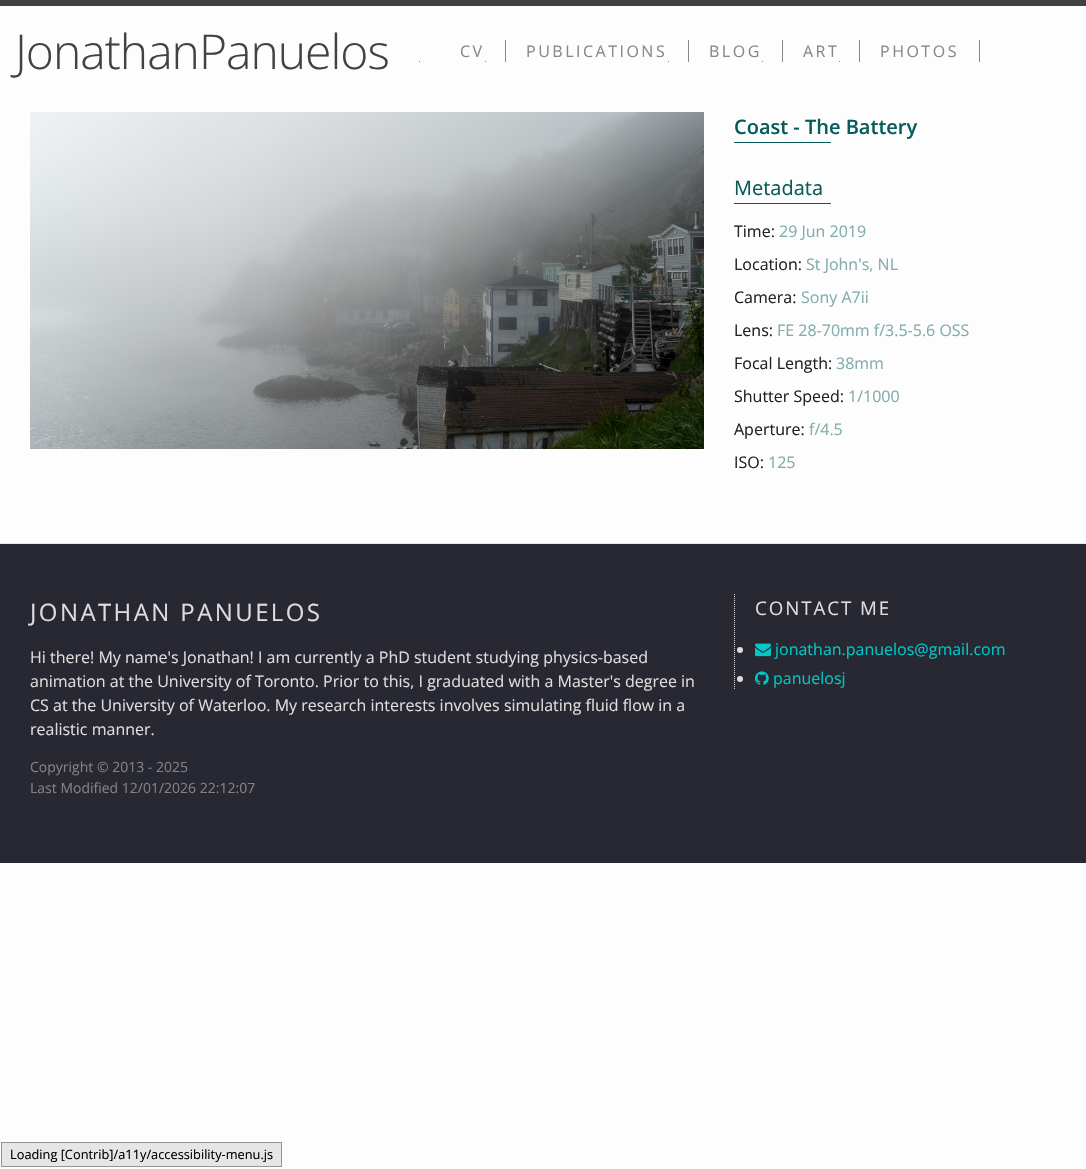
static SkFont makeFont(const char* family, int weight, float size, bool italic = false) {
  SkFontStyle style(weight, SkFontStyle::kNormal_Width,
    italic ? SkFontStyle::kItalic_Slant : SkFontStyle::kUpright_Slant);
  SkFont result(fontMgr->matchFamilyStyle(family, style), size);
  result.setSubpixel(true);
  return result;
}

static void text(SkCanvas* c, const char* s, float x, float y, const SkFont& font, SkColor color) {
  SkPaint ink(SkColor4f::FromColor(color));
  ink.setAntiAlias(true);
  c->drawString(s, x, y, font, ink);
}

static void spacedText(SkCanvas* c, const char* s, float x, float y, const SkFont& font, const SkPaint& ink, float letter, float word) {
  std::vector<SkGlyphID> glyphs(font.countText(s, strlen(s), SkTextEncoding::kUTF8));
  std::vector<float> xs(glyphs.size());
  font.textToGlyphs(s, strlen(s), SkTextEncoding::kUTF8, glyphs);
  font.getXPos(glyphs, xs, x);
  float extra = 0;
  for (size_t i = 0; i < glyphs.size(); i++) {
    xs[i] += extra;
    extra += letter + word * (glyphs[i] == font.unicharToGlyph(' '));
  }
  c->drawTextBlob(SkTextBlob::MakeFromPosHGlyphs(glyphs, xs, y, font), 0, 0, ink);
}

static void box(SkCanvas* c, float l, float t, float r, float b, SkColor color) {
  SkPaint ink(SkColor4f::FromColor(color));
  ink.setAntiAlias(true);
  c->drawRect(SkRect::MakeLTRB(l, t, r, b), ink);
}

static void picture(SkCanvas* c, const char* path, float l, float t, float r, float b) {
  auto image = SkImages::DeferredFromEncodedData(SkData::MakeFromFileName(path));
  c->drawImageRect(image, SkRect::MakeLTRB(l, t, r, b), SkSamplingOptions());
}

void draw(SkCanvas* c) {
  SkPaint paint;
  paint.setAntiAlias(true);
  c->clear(0xfffdfdfd);
  box(c, 0, 0, 1086, 6, 0xff424242);
  SkFont face1 = makeFont("Open Sans", 300, 48);
  paint.setColor(0xff424242);
  spacedText(c, "JonathanPanuelos", 15, 69, face1, paint, -1, 0);
  SkFont face2 = makeFont("Open Sans", 400, 16);
  paint.setColor(0xff888888);
  spacedText(c, "CV", 460, 57, face2, paint, 2.5f, 0);
  box(c, 419, 61, 420, 62, 0xff888888);
  box(c, 505, 40, 506, 62, 0xff888888);
  spacedText(c, "PUBLICATIONS", 526, 57, face2, paint, 2.5f, 0);
  box(c, 485, 61, 486, 62, 0xff888888);
  box(c, 688, 40, 689, 62, 0xff888888);
  spacedText(c, "BLOG", 709, 57, face2, paint, 2.5f, 0);
  box(c, 668, 61, 669, 62, 0xff888888);
  box(c, 782, 40, 783, 62, 0xff888888);
  spacedText(c, "ART", 803, 57, face2, paint, 2.5f, 0);
  box(c, 762, 61, 763, 62, 0xff888888);
  box(c, 859, 40, 860, 62, 0xff888888);
  spacedText(c, "PHOTOS", 880, 57, face2, paint, 2.5f, 0);
  box(c, 839, 61, 840, 62, 0xff888888);
  box(c, 979, 40, 980, 62, 0xff888888);
  picture(c, "img_01.png", 30, 112, 704, 449);
  SkFont face3 = makeFont("Open Sans", 600, 20);
  text(c, "Coast - The Battery", 734, 134, face3, 0xff075b5b);
  box(c, 734, 142, 831, 143, 0xff075b5b);
  SkFont face4 = makeFont("Open Sans", 400, 20);
  text(c, "Metadata", 734, 195, face4, 0xff075b5b);
  box(c, 734, 203, 831, 204, 0xff075b5b);
  text(c, "Time:", 734, 237, face2, 0xff222222);
  text(c, "29 Jun 2019", 779, 237, face2, 0xff82acac);
  text(c, "Location:", 734, 270, face2, 0xff222222);
  text(c, "St John's, NL", 806, 270, face2, 0xff82acac);
  text(c, "Camera:", 734, 303, face2, 0xff222222);
  text(c, "Sony A7ii", 801, 303, face2, 0xff82acac);
  text(c, "Lens:", 734, 336, face2, 0xff222222);
  text(c, "FE 28-70mm f/3.5-5.6 OSS", 777, 336, face2, 0xff82acac);
  text(c, "Focal Length:", 734, 369, face2, 0xff222222);
  text(c, "38mm", 836, 369, face2, 0xff82acac);
  text(c, "Shutter Speed:", 734, 402, face2, 0xff222222);
  text(c, "1/1000", 848, 402, face2, 0xff82acac);
  text(c, "Aperture:", 734, 435, face2, 0xff222222);
  text(c, "f/4.5", 809, 435, face2, 0xff82acac);
  text(c, "ISO:", 734, 468, face2, 0xff222222);
  text(c, "125", 768, 468, face2, 0xff82acac);
  box(c, 0, 544, 1086, 863, 0xff282832);
  box(c, 0, 543, 1086, 544, 0xffe8e8e8);
  SkFont face5 = makeFont("Open Sans", 400, 24);
  paint.setColor(0xffdddddd);
  spacedText(c, "JONATHAN PANUELOS", 30, 621, face5, paint, 2.4f, 0);
  text(c, "Hi there! My name's Jonathan! I am currently a PhD student studying physics-based", 30, 663, face2, 0xffdddddd);
  text(c, "animation at the University of Toronto. Prior to this, I graduated with a Master's degree in", 30, 687, face2, 0xffdddddd);
  text(c, "CS at the University of Waterloo. My research interests involves simulating fluid flow in a", 30, 711, face2, 0xffdddddd);
  text(c, "realistic manner.", 30, 735, face2, 0xffdddddd);
  SkFont face6 = makeFont("Open Sans", 400, 14);
  text(c, "Copyright © 2013 - 2025", 30, 772, face6, 0xff828282);
  text(c, "Last Modified 12/01/2026 22:12:07", 30, 793, face6, 0xff828282);
  paint.setStyle(SkPaint::kStroke_Style);
  paint.setStrokeWidth(1);
  paint.setPathEffect(SkDashPathEffect::Make({{1, 1}}, 0));
  c->drawPath(SkPathBuilder().moveTo(734.5f, 594).lineTo(734.5f, 690).detach(), paint);
  paint.setPathEffect(nullptr);
  SkFont face7 = makeFont("Open Sans", 400, 18.75f);
  paint.setStyle(SkPaint::kFill_Style);
  spacedText(c, "CONTACT ME", 755, 615, face7, paint, 1.9f, 0);
  c->drawCircle(740, 650, 3, paint);
  picture(c, "img_02.png", 755, 643, 771, 657);
  text(c, "jonathan.panuelos@gmail.com", 775, 655, face2, 0xff00c8c8);
  c->drawCircle(740, 679, 3, paint);
  picture(c, "img_03.png", 755, 671, 769, 685);
  text(c, "panuelosj", 773, 684, face2, 0xff00c8c8);
  paint.setColor(0xffe6e6e6);
  c->drawRect(SkRect::MakeLTRB(1.5f, 1142.5f, 281.5f, 1166.5f), paint);
  paint.setStyle(SkPaint::kStroke_Style);
  paint.setColor(0xff959595);
  c->drawRect(SkRect::MakeLTRB(1.5f, 1142.5f, 281.5f, 1166.5f), paint);
  SkFont face8 = makeFont("Open Sans", 400, 12.8f);
  text(c, "Loading [Contrib]/a11y/accessibility-menu.js", 10, 1159, face8, 0xff000000);
}
